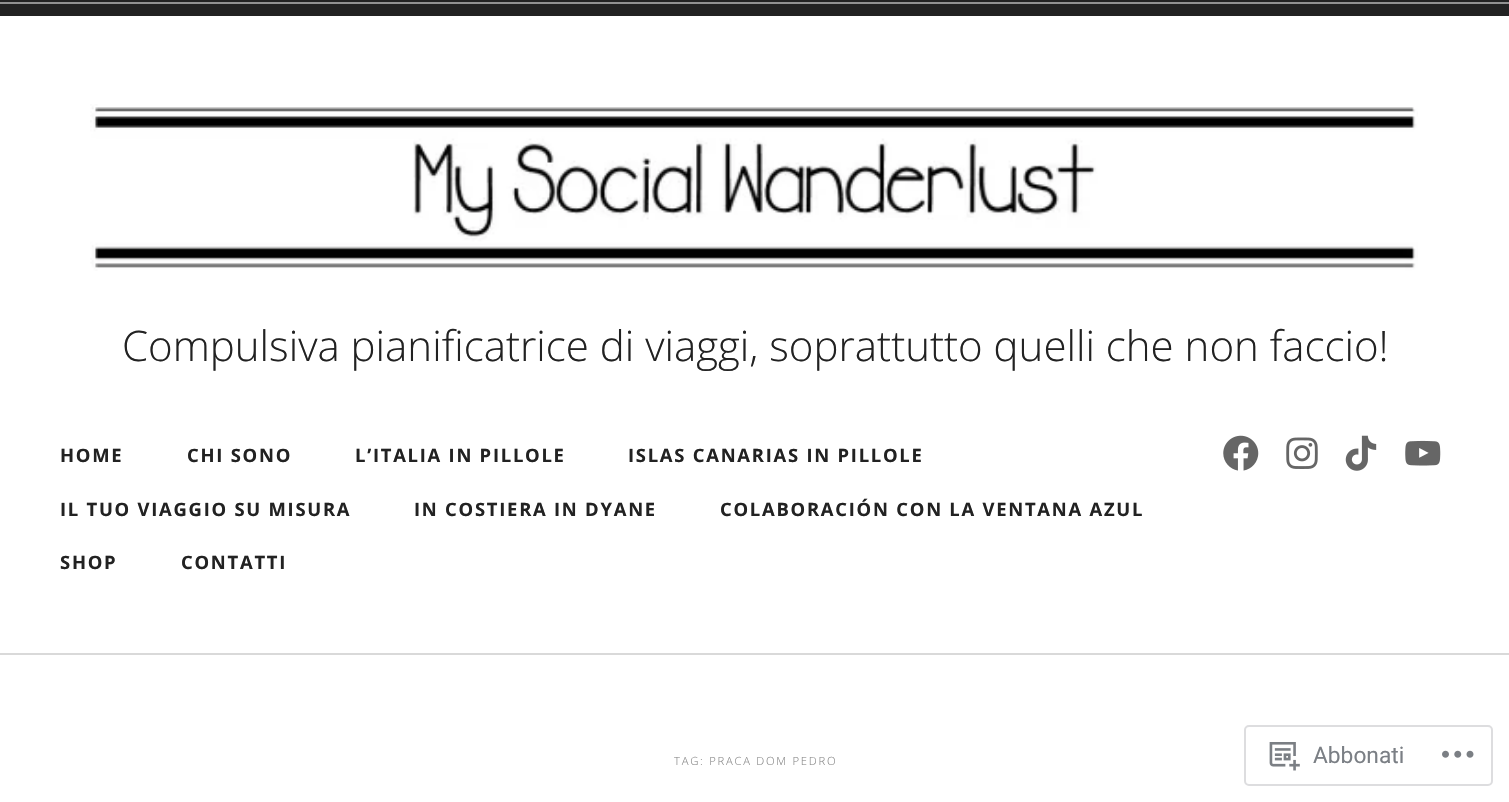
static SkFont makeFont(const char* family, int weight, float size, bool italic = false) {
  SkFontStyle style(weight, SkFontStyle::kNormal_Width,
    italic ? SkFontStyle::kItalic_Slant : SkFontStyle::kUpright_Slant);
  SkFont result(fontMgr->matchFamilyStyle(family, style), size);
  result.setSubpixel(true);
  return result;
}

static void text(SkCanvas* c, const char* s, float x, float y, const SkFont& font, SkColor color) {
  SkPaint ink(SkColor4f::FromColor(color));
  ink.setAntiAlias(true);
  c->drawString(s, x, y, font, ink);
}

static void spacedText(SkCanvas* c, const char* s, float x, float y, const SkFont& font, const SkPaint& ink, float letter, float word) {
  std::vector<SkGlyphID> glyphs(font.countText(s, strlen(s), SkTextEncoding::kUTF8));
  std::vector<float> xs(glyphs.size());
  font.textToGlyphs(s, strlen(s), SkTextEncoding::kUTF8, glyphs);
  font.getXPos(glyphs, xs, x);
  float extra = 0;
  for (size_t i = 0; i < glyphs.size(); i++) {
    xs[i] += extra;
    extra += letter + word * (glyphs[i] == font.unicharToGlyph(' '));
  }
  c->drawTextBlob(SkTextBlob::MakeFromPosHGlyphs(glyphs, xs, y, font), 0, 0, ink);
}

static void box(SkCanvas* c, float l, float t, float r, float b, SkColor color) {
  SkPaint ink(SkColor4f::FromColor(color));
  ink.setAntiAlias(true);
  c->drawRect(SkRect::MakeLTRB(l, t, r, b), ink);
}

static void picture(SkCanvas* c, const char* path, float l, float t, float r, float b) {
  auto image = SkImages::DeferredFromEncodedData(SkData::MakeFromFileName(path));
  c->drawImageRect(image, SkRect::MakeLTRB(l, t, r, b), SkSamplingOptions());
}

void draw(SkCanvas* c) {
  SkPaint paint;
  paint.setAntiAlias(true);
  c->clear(0xffffffff);
  box(c, 0, 0, 1509, 16, 0xff222222);
  box(c, 0, 2, 1509, 4, 0xff919191);
  picture(c, "img_01.png", 90, 104, 1418, 271);
  SkFont face1 = makeFont("Open Sans", 300, 42);
  text(c, "Compulsiva pianificatrice di viaggi, soprattutto quelli che non faccio!", 122, 361, face1, 0xff222222);
  SkFont face2 = makeFont("Open Sans", 700, 18.4f);
  paint.setColor(0xff222222);
  spacedText(c, "HOME", 60, 462, face2, paint, 1.75f, 0);
  spacedText(c, "CHI SONO", 187, 462, face2, paint, 1.75f, 0);
  spacedText(c, "L’ITALIA IN PILLOLE", 355, 462, face2, paint, 1.75f, 0);
  spacedText(c, "ISLAS CANARIAS IN PILLOLE", 628, 462, face2, paint, 1.75f, 0);
  spacedText(c, "IL TUO VIAGGIO SU MISURA", 60, 516, face2, paint, 1.75f, 0);
  spacedText(c, "IN COSTIERA IN DYANE", 414, 516, face2, paint, 1.75f, 0);
  spacedText(c, "COLABORACIÓN CON LA VENTANA AZUL", 720, 516, face2, paint, 1.75f, 0);
  spacedText(c, "SHOP", 60, 569, face2, paint, 1.75f, 0);
  spacedText(c, "CONTATTI", 181, 569, face2, paint, 1.75f, 0);
  picture(c, "img_02.png", 1223, 435, 1259, 471);
  picture(c, "img_03.png", 1286, 437, 1318, 469);
  picture(c, "img_04.png", 1345, 435, 1377, 471);
  picture(c, "img_05.png", 1405, 440, 1441, 466);
  box(c, 0, 653, 1509, 655, 0xffd9d9d9);
  SkFont face3 = makeFont("Open Sans", 300, 11.25f);
  paint.setColor(0xff888888);
  spacedText(c, "TAG: PRACA DOM PEDRO", 674, 765, face3, paint, 1.75f, 0);
  paint.setStyle(SkPaint::kStroke_Style);
  paint.setStrokeWidth(2);
  paint.setColor(0xffdddddf);
  c->drawRoundRect(SkRect::MakeLTRB(1245, 726, 1492, 785), 4, 4, paint);
  picture(c, "img_06.png", 1269, 742, 1300, 771);
  SkFont face4 = makeFont("Roboto", 400, 22.75f);
  text(c, "Abbonati", 1313, 763, face4, 0xff7b7f85);
  picture(c, "img_07.png", 1442, 750, 1474, 758);
}
